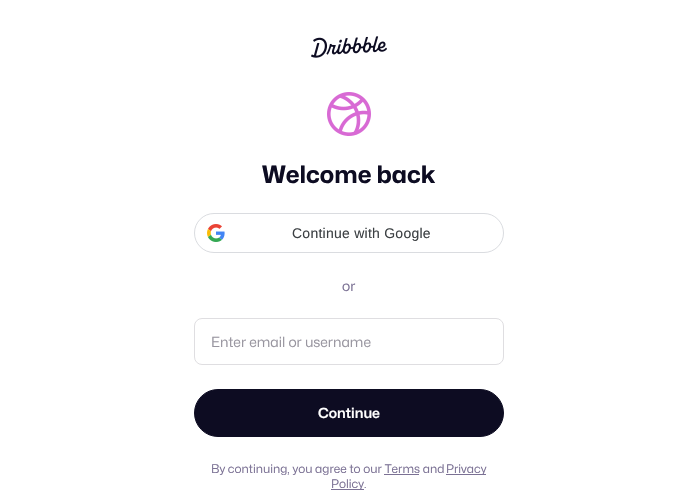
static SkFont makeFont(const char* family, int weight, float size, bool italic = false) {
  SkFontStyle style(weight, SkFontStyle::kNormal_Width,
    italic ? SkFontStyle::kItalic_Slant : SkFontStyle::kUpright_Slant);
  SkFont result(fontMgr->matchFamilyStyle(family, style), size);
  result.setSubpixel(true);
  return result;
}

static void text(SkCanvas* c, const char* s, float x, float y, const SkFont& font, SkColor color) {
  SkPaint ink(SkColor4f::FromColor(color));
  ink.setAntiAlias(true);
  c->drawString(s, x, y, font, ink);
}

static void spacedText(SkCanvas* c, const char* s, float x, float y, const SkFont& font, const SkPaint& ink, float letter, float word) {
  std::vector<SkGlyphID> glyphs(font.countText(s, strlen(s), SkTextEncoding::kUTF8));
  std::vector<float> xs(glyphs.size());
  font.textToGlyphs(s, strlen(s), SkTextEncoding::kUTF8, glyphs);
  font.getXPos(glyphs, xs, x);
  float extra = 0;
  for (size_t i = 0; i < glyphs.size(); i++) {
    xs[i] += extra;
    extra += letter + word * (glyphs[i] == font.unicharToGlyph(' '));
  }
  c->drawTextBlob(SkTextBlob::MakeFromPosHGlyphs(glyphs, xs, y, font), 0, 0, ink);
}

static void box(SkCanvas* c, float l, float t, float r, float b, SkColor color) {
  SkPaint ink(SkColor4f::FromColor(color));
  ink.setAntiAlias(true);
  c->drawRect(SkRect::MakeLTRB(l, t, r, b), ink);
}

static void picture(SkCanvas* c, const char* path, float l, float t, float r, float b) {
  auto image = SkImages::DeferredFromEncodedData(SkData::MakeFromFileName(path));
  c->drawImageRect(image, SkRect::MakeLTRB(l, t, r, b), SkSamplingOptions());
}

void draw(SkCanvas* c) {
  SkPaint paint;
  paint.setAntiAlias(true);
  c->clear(0xffffffff);
  picture(c, "img_01.png", 311, 36, 387, 58);
  picture(c, "img_02.png", 327, 92, 371, 136);
  SkFont face1 = makeFont("Mona Sans", 700, 24);
  text(c, "Welcome back", 262, 183, face1, 0xff0d0c22);
  paint.setStyle(SkPaint::kStroke_Style);
  paint.setStrokeWidth(1);
  paint.setColor(0xffdadce0);
  c->drawRoundRect(SkRect::MakeLTRB(194.5f, 213.5f, 503.5f, 252.5f), 19.5f, 19.5f, paint);
  picture(c, "img_03.png", 207, 224, 225, 242);
  SkFont face2 = makeFont("Liberation Sans", 400, 14);
  paint.setStyle(SkPaint::kFill_Style);
  paint.setColor(0xff3c4043);
  spacedText(c, "Continue with Google", 292, 238, face2, paint, 0.25f, 0);
  SkFont face3 = makeFont("Mona Sans", 400, 14);
  text(c, "or", 342, 291, face3, 0xff7b7194);
  paint.setStyle(SkPaint::kStroke_Style);
  paint.setColor(0xffdfdee1);
  c->drawRoundRect(SkRect::MakeLTRB(194.5f, 318.5f, 503.5f, 364.5f), 7.5f, 7.5f, paint);
  text(c, "Enter email or username", 211, 347, face3, 0xff98959f);
  paint.setStyle(SkPaint::kFill_Style);
  paint.setColor(0xff0d0c22);
  c->drawRoundRect(SkRect::MakeLTRB(194.5f, 389.5f, 503.5f, 436.5f), 23.5f, 23.5f, paint);
  paint.setStyle(SkPaint::kStroke_Style);
  c->drawRoundRect(SkRect::MakeLTRB(194.5f, 389.5f, 503.5f, 436.5f), 23.5f, 23.5f, paint);
  SkFont face4 = makeFont("Mona Sans", 600, 14);
  text(c, "Continue", 318, 418, face4, 0xffffffff);
  SkFont face5 = makeFont("Mona Sans", 400, 12);
  text(c, "By continuing, you agree to our Terms and", 211, 473, face5, 0xff7b7194);
  box(c, 446, 474, 486, 475, 0xff7b7194);
  text(c, "Privacy", 446, 473, face5, 0xff7b7194);
  box(c, 384, 474, 419, 475, 0xff7b7194);
  box(c, 331, 489, 364, 490, 0xff7b7194);
  text(c, "Policy.", 331, 488, face5, 0xff7b7194);
}
